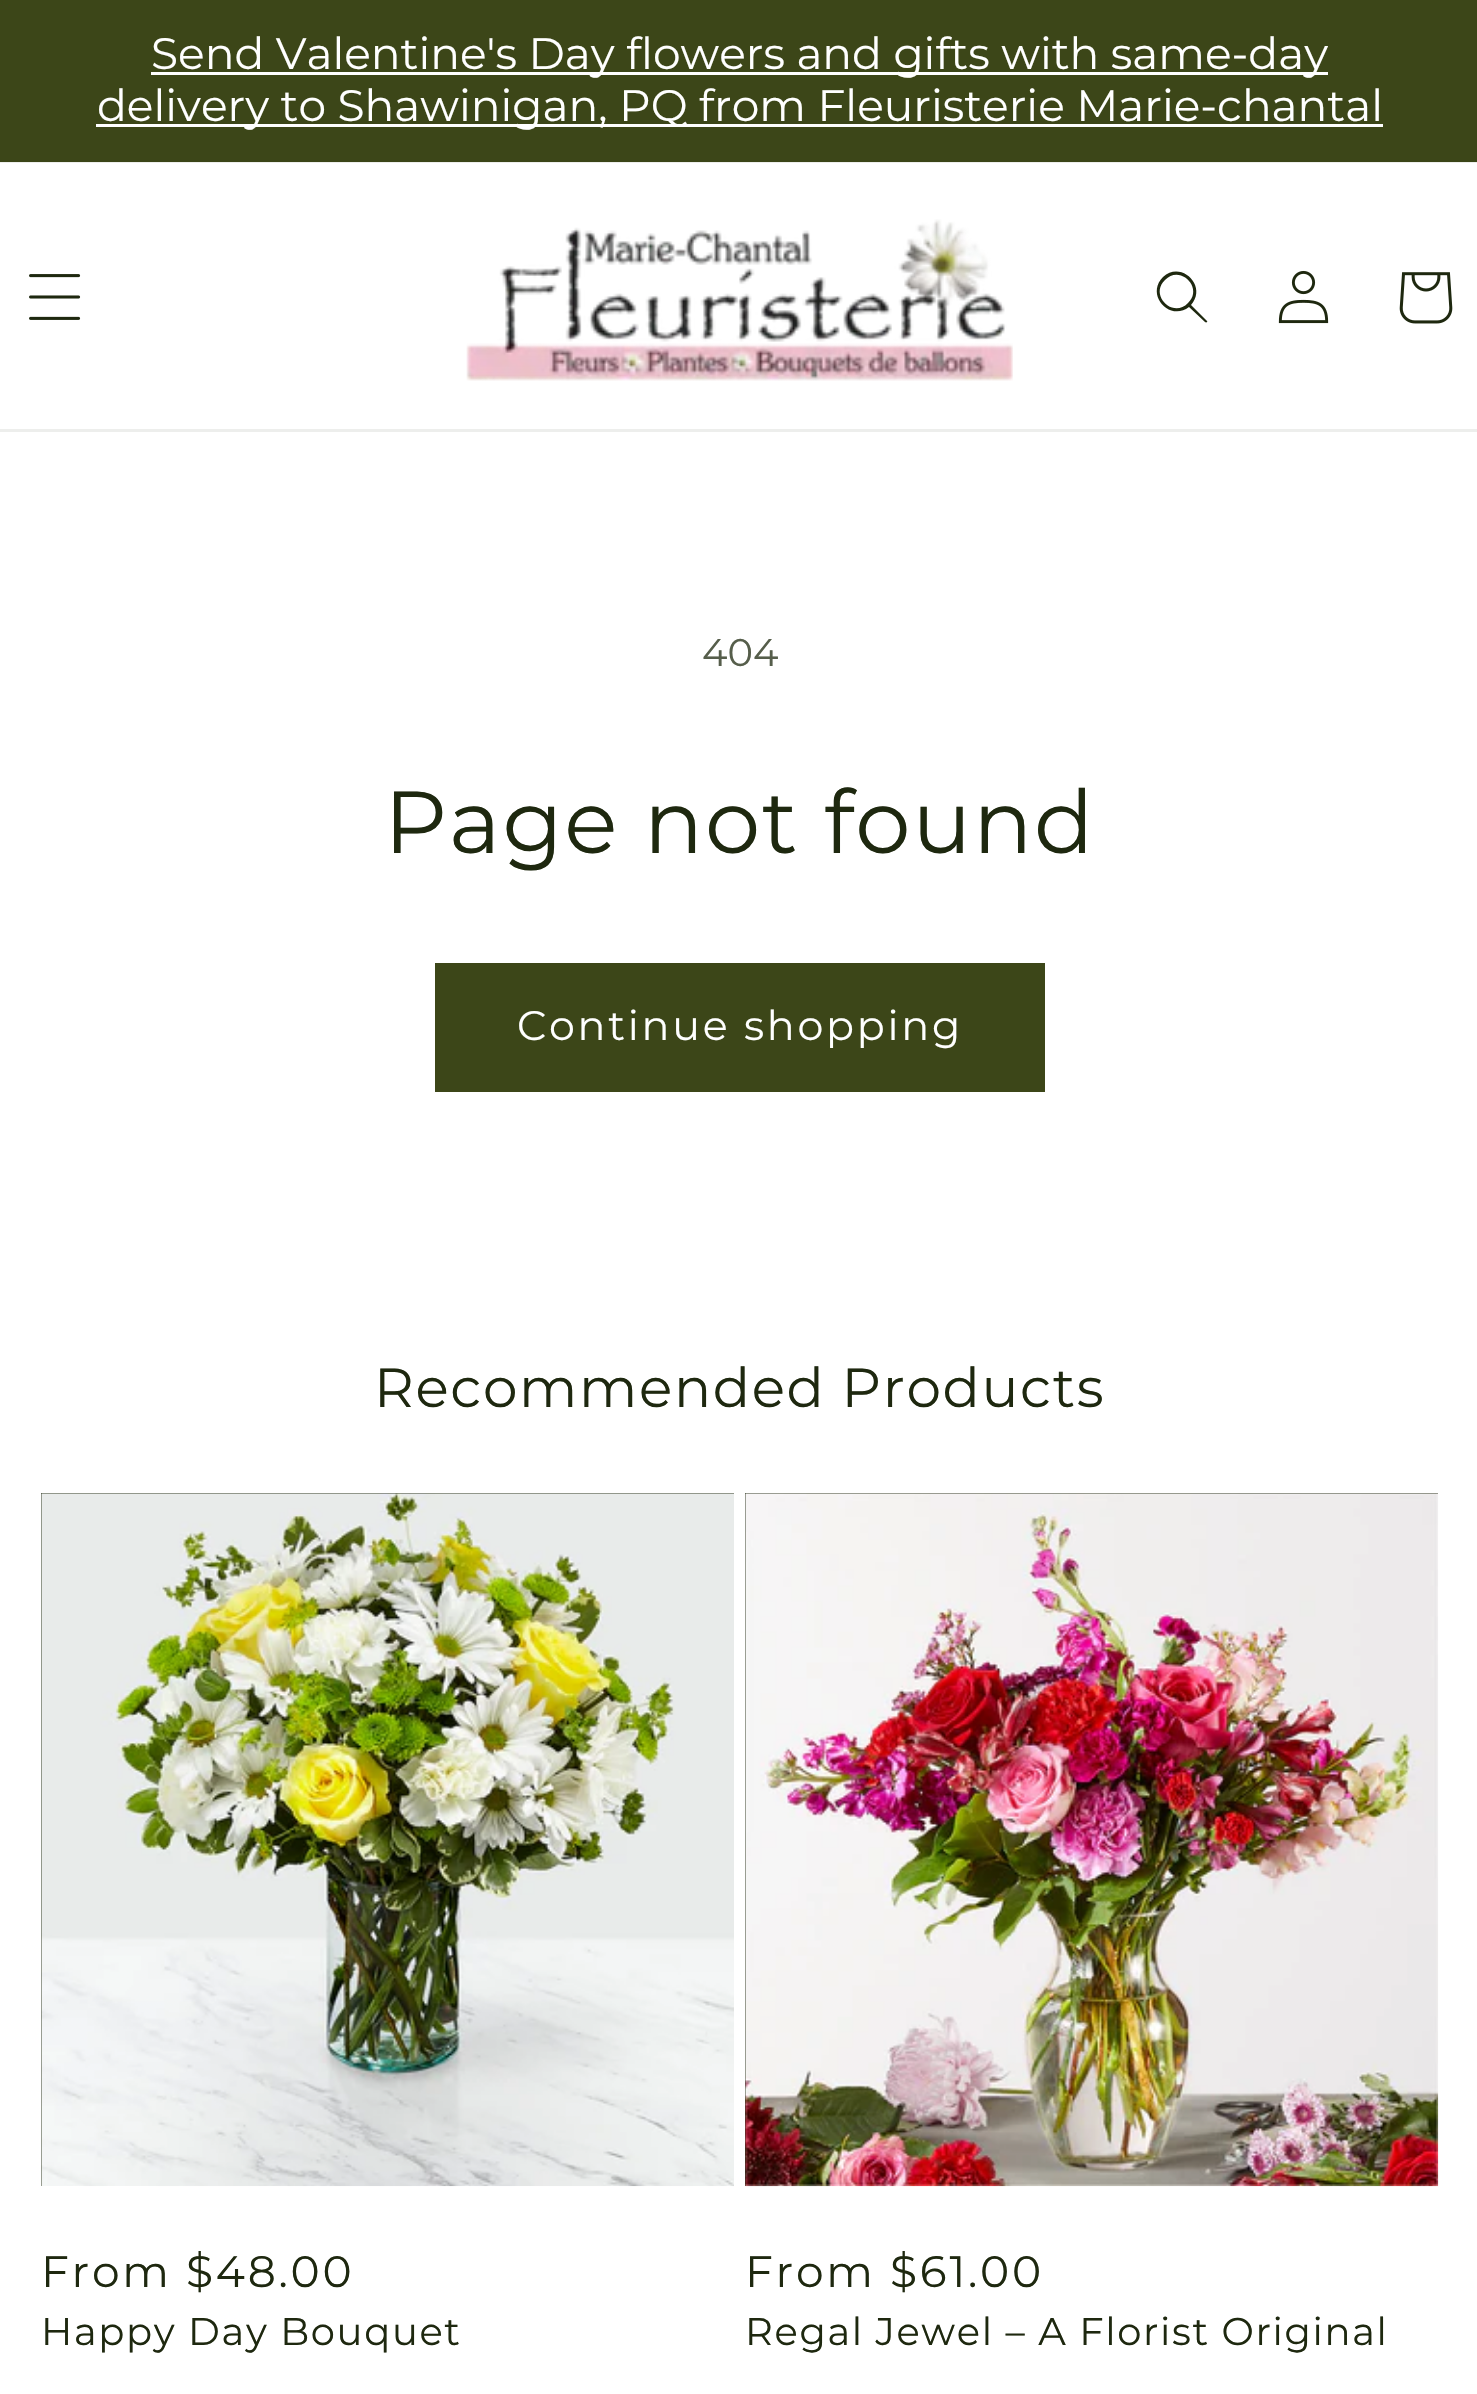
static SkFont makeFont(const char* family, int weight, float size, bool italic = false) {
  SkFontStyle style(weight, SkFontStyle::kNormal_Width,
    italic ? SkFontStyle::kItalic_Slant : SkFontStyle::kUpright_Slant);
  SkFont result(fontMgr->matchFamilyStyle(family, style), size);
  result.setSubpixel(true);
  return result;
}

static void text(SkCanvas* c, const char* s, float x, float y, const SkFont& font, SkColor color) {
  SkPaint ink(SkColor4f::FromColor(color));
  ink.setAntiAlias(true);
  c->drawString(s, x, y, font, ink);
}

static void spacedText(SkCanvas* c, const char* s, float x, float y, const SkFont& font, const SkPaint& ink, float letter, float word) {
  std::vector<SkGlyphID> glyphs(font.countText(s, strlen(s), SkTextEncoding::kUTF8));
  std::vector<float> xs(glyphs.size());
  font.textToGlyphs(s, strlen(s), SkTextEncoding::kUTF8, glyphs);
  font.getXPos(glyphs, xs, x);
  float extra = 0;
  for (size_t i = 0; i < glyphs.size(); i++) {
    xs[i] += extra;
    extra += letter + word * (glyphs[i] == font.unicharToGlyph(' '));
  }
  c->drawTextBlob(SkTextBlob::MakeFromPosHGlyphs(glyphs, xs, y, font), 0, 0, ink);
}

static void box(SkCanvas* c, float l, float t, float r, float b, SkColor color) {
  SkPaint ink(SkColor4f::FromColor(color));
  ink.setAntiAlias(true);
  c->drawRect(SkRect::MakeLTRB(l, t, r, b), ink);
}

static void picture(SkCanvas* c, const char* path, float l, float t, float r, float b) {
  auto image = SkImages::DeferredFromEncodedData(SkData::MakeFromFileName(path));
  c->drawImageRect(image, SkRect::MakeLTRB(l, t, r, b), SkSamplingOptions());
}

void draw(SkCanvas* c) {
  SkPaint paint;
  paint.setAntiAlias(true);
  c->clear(0xffffffff);
  box(c, 0, 162, 1477, 163, 0xffedeeec);
  box(c, 0, 0, 1477, 160, 0xff3c4618);
  box(c, 0, 160, 1477, 162, 0xff3a4417);
  box(c, 151, 72, 1328, 75, 0xffffffff);
  SkFont face1 = makeFont("Montserrat", 400, 44);
  text(c, "Send Valentine's Day flowers and gifts with same-day", 151, 69, face1, 0xffffffff);
  box(c, 96, 124, 1383, 127, 0xffffffff);
  text(c, "delivery to Shawinigan, PQ from Fleuristerie Marie-chantal", 97, 121, face1, 0xffffffff);
  box(c, 0, 429, 1477, 432, 0xffedeeec);
  picture(c, "img_01.png", 29, 274, 81, 320);
  picture(c, "img_02.png", 466, 219, 1013, 381);
  paint.setColor(0xff1e280f);
  c->drawPath(SkPathBuilder(SkPathFillType::kEvenOdd).moveTo(1188, 303).cubicTo(1173, 319, 1149, 295, 1165, 280).cubicTo(1180, 264, 1204, 288, 1188, 303).moveTo(1189, 307).cubicTo(1170, 322, 1145, 295, 1163, 277).cubicTo(1181, 260, 1208, 286, 1191, 305).lineTo(1207, 321).cubicTo(1208, 322, 1206, 323, 1205, 322).close().detach(), paint);
  picture(c, "img_03.png", 1278, 270, 1329, 324);
  picture(c, "img_04.png", 1399, 272, 1453, 324);
  SkFont face2 = makeFont("Montserrat", 400, 38.5f);
  text(c, "404", 702, 666, face2, 0xff565e4b);
  SkFont face3 = makeFont("Montserrat", 400, 88);
  spacedText(c, "Page not found", 384, 853, face3, paint, 1.65f, 0);
  box(c, 435, 963, 1045, 1092, 0xff3c4618);
  SkFont face4 = makeFont("Montserrat", 400, 41.25f);
  paint.setColor(0xffffffff);
  spacedText(c, "Continue shopping", 517, 1040, face4, paint, 2.75f, 0);
  SkFont face5 = makeFont("Montserrat", 400, 55);
  paint.setColor(0xff1e280f);
  spacedText(c, "Recommended Products", 374, 1407, face5, paint, 1.65f, 0);
  box(c, 41, 1493, 734, 2186, 0xff1e280f);
  picture(c, "img_05.png", 41, 1493, 734, 2187);
  spacedText(c, "From $48.00", 41, 2287, face1, paint, 2.75f, 0);
  spacedText(c, "Happy Day Bouquet", 41, 2345, face2, paint, 1.65f, 0);
  box(c, 745, 1493, 1438, 2186, 0xff1e280f);
  picture(c, "img_06.png", 745, 1493, 1439, 2187);
  spacedText(c, "From $61.00", 745, 2287, face1, paint, 2.75f, 0);
  spacedText(c, "Regal Jewel – A Florist Original", 745, 2345, face2, paint, 1.65f, 0);
}
